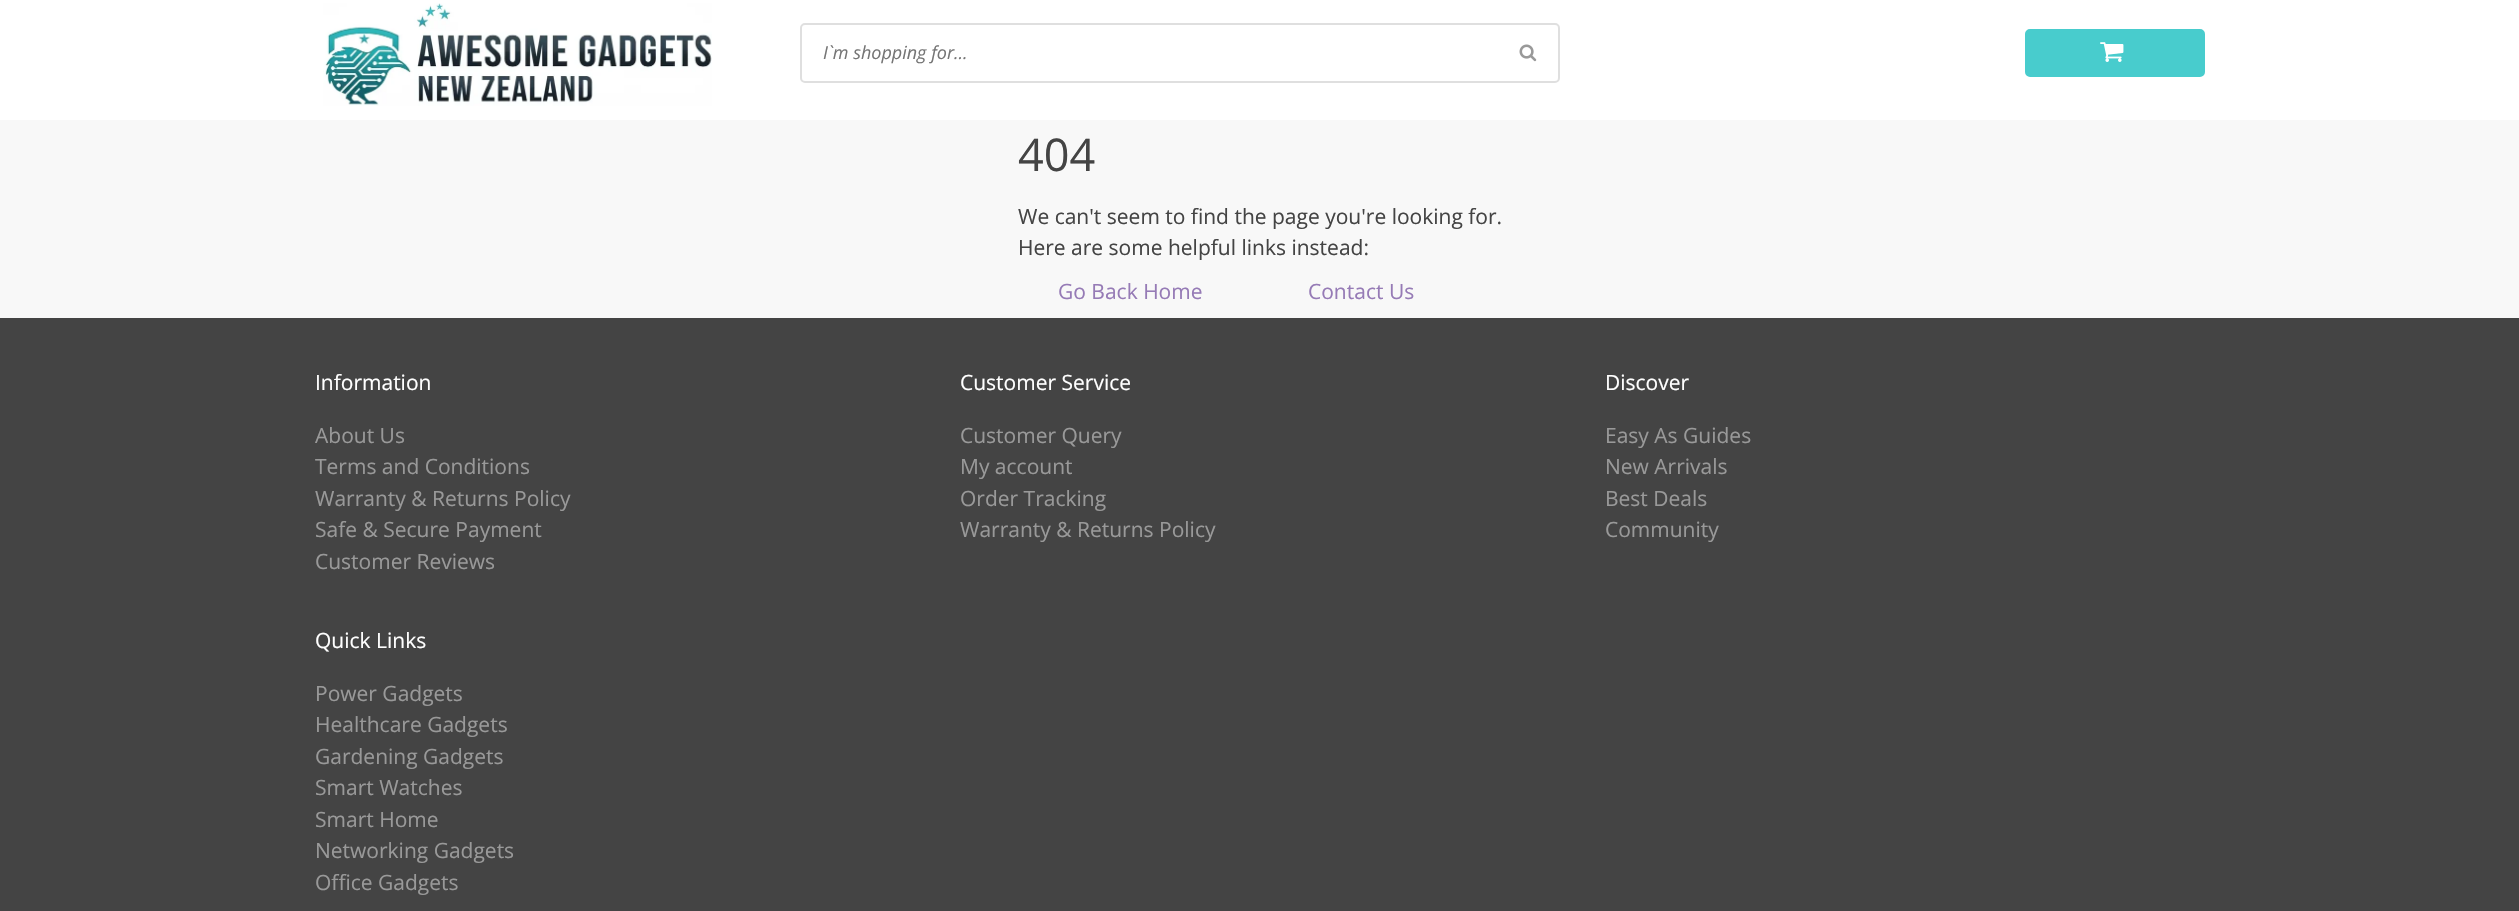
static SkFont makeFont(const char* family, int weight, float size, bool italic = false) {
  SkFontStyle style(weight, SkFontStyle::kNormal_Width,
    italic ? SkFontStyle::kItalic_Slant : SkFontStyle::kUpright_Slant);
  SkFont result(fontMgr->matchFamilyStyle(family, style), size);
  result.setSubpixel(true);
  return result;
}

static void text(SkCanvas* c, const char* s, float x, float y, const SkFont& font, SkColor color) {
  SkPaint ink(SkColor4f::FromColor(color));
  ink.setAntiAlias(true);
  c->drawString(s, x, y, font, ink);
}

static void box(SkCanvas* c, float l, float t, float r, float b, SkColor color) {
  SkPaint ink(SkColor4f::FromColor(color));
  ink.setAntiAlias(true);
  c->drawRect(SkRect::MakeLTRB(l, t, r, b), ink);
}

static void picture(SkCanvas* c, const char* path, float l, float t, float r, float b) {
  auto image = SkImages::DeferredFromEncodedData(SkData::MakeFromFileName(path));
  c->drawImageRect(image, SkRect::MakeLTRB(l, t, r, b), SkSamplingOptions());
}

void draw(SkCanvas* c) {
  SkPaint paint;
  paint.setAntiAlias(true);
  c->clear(0xfff8f8f8);
  box(c, 0, 0, 2519, 120, 0xffffffff);
  picture(c, "img_01.png", 323, 3, 712, 106);
  paint.setStyle(SkPaint::kStroke_Style);
  paint.setStrokeWidth(2);
  paint.setColor(0xffdfdfdf);
  c->drawRoundRect(SkRect::MakeLTRB(801, 24, 1559, 82), 4, 4, paint);
  SkFont face1 = makeFont("Open Sans", 400, 18, true);
  text(c, "I`m shopping for...", 823, 59, face1, 0xff757575);
  picture(c, "img_02.png", 1519, 44, 1537, 62);
  paint.setStyle(SkPaint::kFill_Style);
  paint.setColor(0xff48cccd);
  c->drawRoundRect(SkRect::MakeLTRB(2026, 30, 2204, 76), 4, 4, paint);
  paint.setStyle(SkPaint::kStroke_Style);
  c->drawRoundRect(SkRect::MakeLTRB(2026, 30, 2204, 76), 4, 4, paint);
  picture(c, "img_03.png", 2100, 42, 2124, 62);
  SkFont face2 = makeFont("Open Sans", 400, 45);
  text(c, "404", 1018, 171, face2, 0xff444444);
  SkFont face3 = makeFont("Open Sans", 400, 21);
  text(c, "We can't seem to find the page you're looking for.", 1018, 224, face3, 0xff444444);
  text(c, "Here are some helpful links instead:", 1018, 255, face3, 0xff444444);
  text(c, "Go Back Home", 1058, 299, face3, 0xff967bb6);
  text(c, "Contact Us", 1308, 299, face3, 0xff967bb6);
  box(c, 0, 318, 2519, 911, 0xff444444);
  text(c, "Information", 315, 390, face3, 0xffffffff);
  text(c, "About Us", 315, 443, face3, 0xff999999);
  text(c, "Terms and Conditions", 315, 474, face3, 0xff999999);
  text(c, "Warranty & Returns Policy", 315, 506, face3, 0xff999999);
  text(c, "Safe & Secure Payment", 315, 537, face3, 0xff999999);
  text(c, "Customer Reviews", 315, 569, face3, 0xff999999);
  text(c, "Customer Service", 960, 390, face3, 0xffffffff);
  text(c, "Customer Query", 960, 443, face3, 0xff999999);
  text(c, "My account", 960, 474, face3, 0xff999999);
  text(c, "Order Tracking", 960, 506, face3, 0xff999999);
  text(c, "Warranty & Returns Policy", 960, 537, face3, 0xff999999);
  text(c, "Discover", 1605, 390, face3, 0xffffffff);
  text(c, "Easy As Guides", 1605, 443, face3, 0xff999999);
  text(c, "New Arrivals", 1605, 474, face3, 0xff999999);
  text(c, "Best Deals", 1605, 506, face3, 0xff999999);
  text(c, "Community", 1605, 537, face3, 0xff999999);
  text(c, "Quick Links", 315, 648, face3, 0xffffffff);
  text(c, "Power Gadgets", 315, 701, face3, 0xff999999);
  text(c, "Healthcare Gadgets", 315, 732, face3, 0xff999999);
  text(c, "Gardening Gadgets", 315, 764, face3, 0xff999999);
  text(c, "Smart Watches", 315, 795, face3, 0xff999999);
  text(c, "Smart Home", 315, 827, face3, 0xff999999);
  text(c, "Networking Gadgets", 315, 858, face3, 0xff999999);
  text(c, "Office Gadgets", 315, 890, face3, 0xff999999);
}
